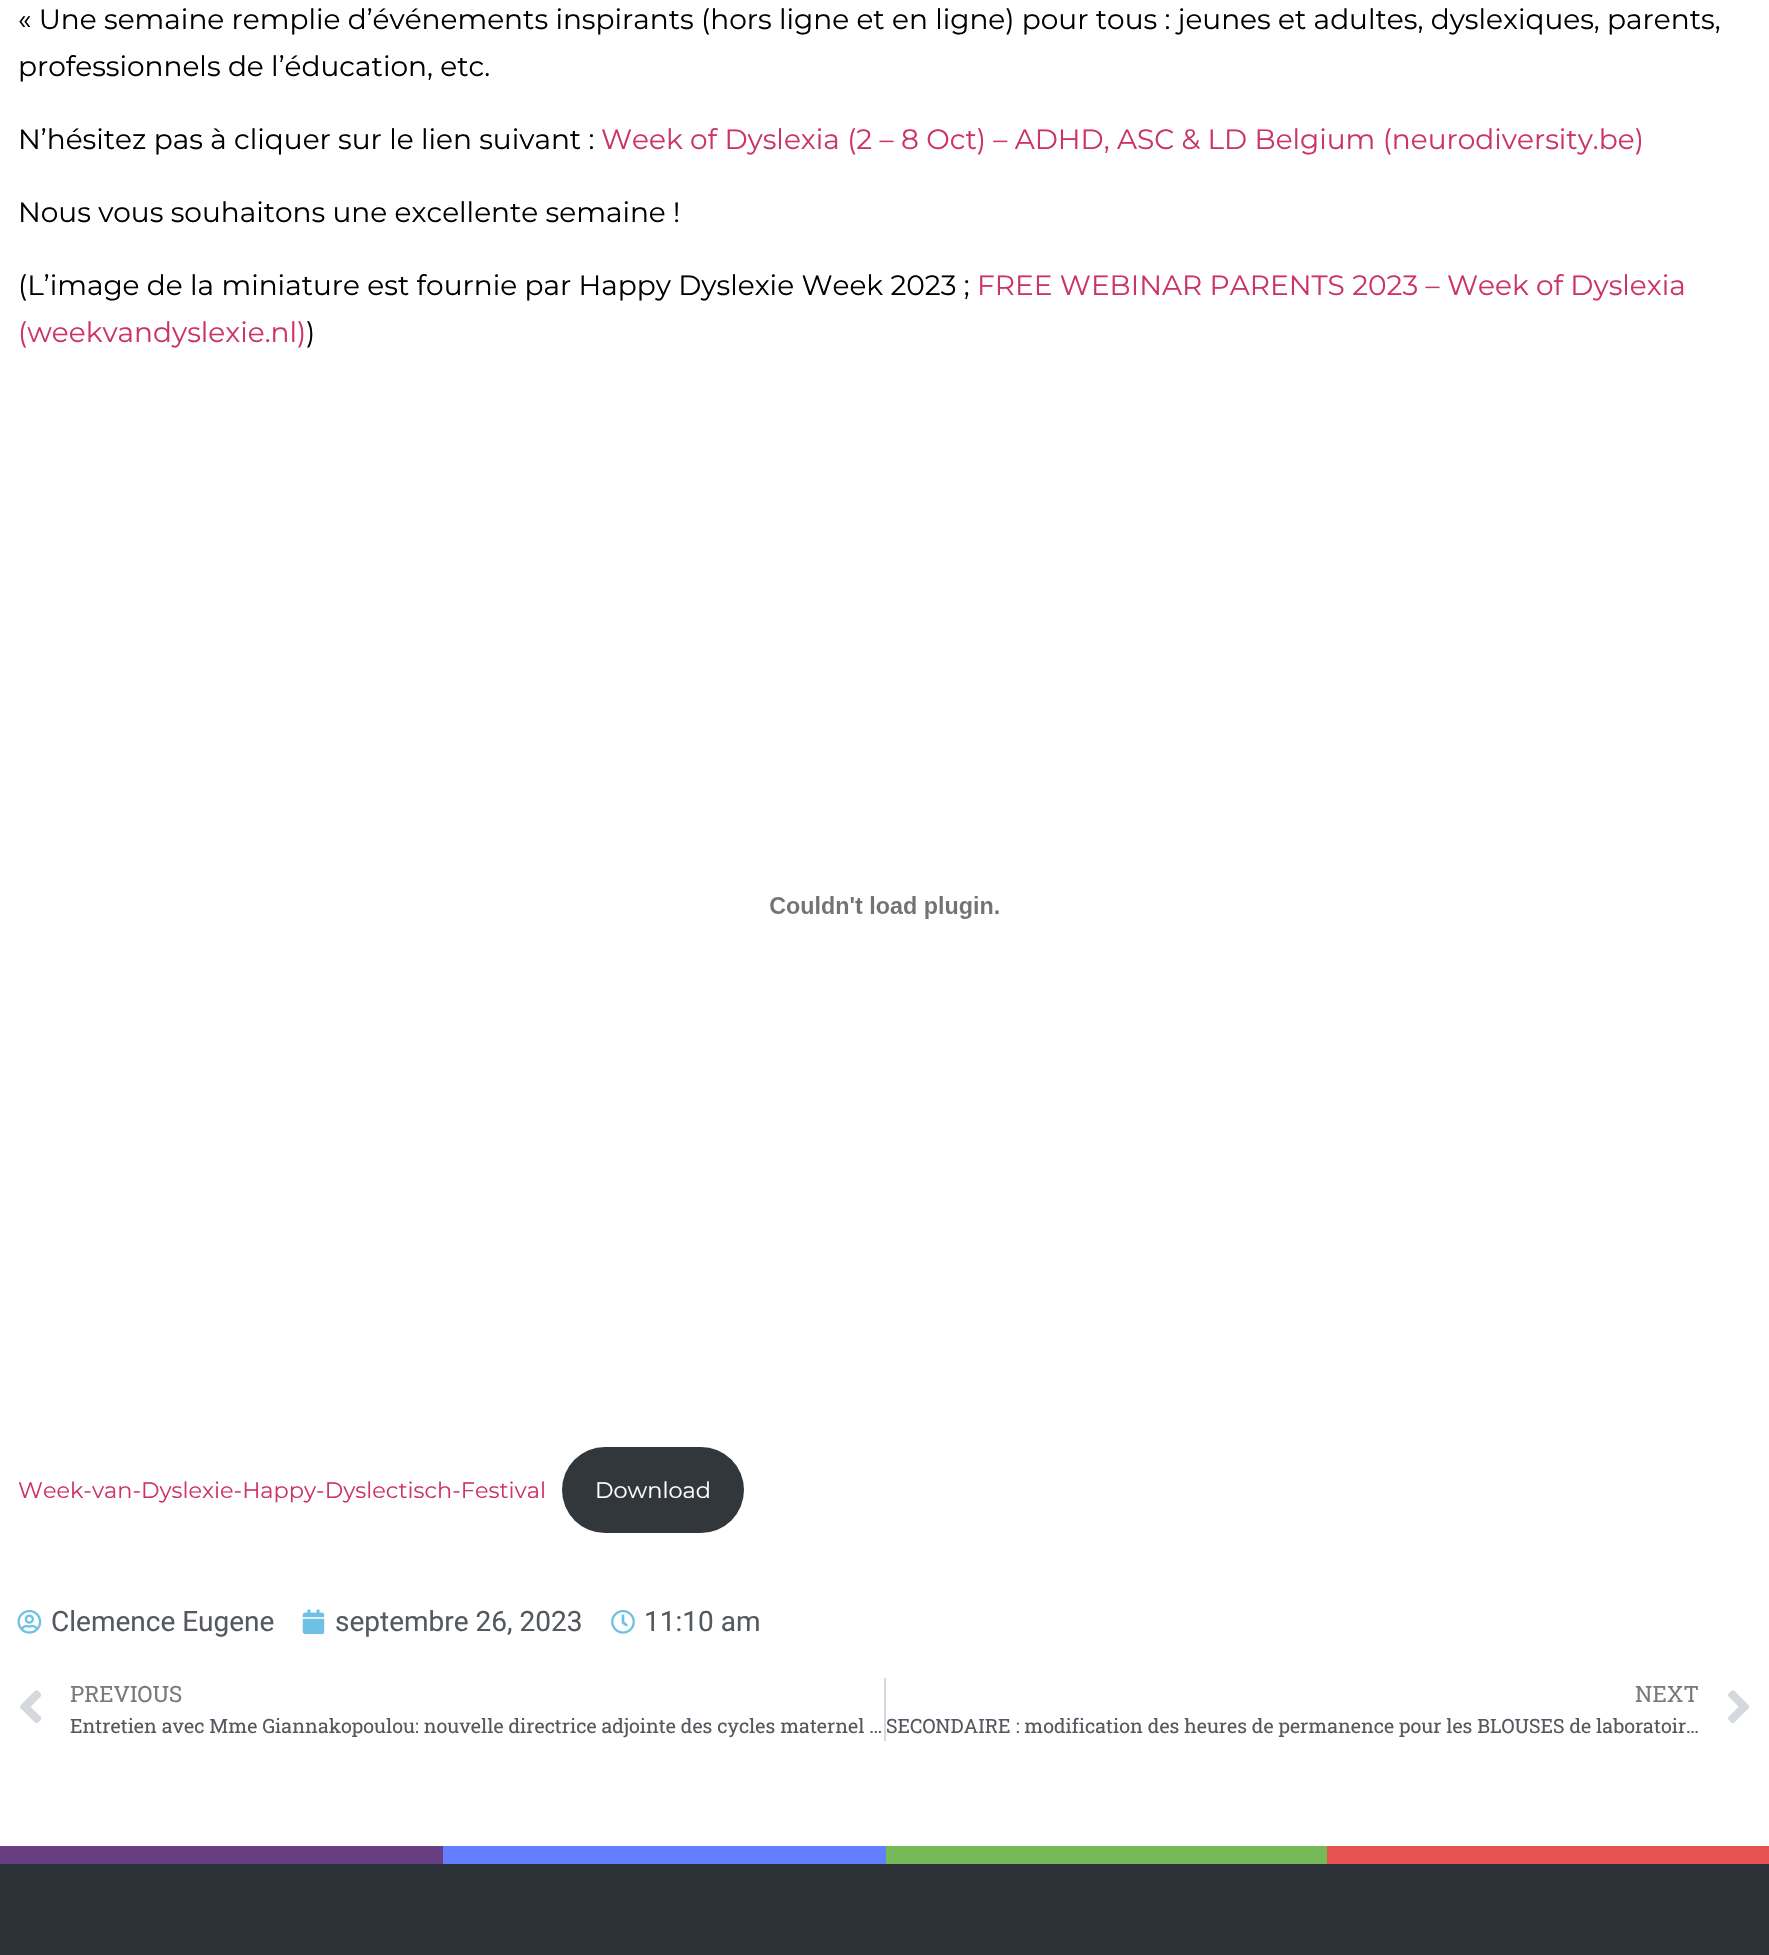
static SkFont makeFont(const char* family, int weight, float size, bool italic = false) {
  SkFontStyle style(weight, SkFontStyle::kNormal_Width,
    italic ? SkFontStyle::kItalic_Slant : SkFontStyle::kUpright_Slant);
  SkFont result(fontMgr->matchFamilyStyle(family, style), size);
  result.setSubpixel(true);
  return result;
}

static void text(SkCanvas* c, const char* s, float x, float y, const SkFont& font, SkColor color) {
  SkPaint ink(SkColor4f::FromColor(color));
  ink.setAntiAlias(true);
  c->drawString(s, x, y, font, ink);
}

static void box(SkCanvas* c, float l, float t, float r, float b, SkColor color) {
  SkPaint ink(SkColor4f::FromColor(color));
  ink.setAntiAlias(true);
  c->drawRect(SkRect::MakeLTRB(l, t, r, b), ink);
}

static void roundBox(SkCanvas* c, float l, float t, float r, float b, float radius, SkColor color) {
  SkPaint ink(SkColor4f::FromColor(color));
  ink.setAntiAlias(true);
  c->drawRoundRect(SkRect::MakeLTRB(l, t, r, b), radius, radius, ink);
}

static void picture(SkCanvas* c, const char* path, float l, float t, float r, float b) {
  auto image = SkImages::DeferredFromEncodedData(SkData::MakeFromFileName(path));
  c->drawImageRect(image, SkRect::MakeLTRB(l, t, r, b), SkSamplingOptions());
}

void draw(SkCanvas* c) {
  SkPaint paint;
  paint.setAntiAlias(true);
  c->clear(0xffffffff);
  SkFont face1 = makeFont("Montserrat", 400, 28);
  text(c, "« Une semaine remplie d’événements inspirants (hors ligne et en ligne) pour tous : jeunes et adultes, dyslexiques, parents,", 18, 29, face1, 0xff000000);
  text(c, "professionnels de l’éducation, etc.", 18, 76, face1, 0xff000000);
  text(c, "N’hésitez pas à cliquer sur le lien suivant :", 18, 149, face1, 0xff000000);
  text(c, "Week of Dyslexia (2 – 8 Oct) – ADHD, ASC & LD Belgium (neurodiversity.be)", 601, 149, face1, 0xffcc3366);
  text(c, "Nous vous souhaitons une excellente semaine !", 18, 222, face1, 0xff000000);
  text(c, "(L’image de la miniature est fournie par Happy Dyslexie Week 2023 ;", 18, 295, face1, 0xff000000);
  text(c, "FREE WEBINAR PARENTS 2023 – Week of Dyslexia", 977, 295, face1, 0xffcc3366);
  text(c, "(weekvandyslexie.nl)", 18, 342, face1, 0xffcc3366);
  text(c, ")", 306, 342, face1, 0xff000000);
  picture(c, "img_01.png", 770, 896, 999, 919);
  SkFont face2 = makeFont("Montserrat", 400, 22.4f);
  text(c, "Week-van-Dyslexie-Happy-Dyslectisch-Festival", 18, 1498, face2, 0xffcc3366);
  roundBox(c, 562, 1447, 744, 1533, 43, 0xff32373c);
  text(c, "Download", 595, 1498, face2, 0xffffffff);
  picture(c, "img_02.png", 17, 1609, 42, 1634);
  SkFont face3 = makeFont("Roboto", 400, 28);
  text(c, "Clemence Eugene", 51, 1631, face3, 0xff54595f);
  picture(c, "img_03.png", 302, 1609, 325, 1635);
  text(c, "septembre 26, 2023", 335, 1631, face3, 0xff54595f);
  picture(c, "img_04.png", 611, 1610, 635, 1634);
  text(c, "11:10 am", 644, 1631, face3, 0xff54595f);
  picture(c, "img_05.png", 20, 1690, 42, 1723);
  SkFont face4 = makeFont("Roboto Slab", 400, 22.4f);
  text(c, "PREVIOUS", 70, 1702, face4, 0xff7a7a7a);
  SkFont face5 = makeFont("Roboto Slab", 400, 19.6f);
  text(c, "Entretien avec Mme Giannakopoulou: nouvelle directrice adjointe des cycles maternel …", 70, 1733, face5, 0xff54595f);
  box(c, 884, 1678, 886, 1741, 0xffd5d8dc);
  text(c, "NEXT", 1635, 1702, face4, 0xff7a7a7a);
  text(c, "SECONDAIRE : modification des heures de permanence pour les BLOUSES de laboratoir…", 886, 1733, face5, 0xff54595f);
  picture(c, "img_06.png", 1728, 1690, 1750, 1723);
  box(c, 0, 1846, 443, 1864, 0xff663e81);
  box(c, 443, 1846, 886, 1864, 0xff637fff);
  box(c, 886, 1846, 1327, 1864, 0xff76ba58);
  box(c, 1327, 1846, 1769, 1864, 0xffe65252);
  box(c, 0, 1864, 1769, 1955, 0xff2b3339);
}
